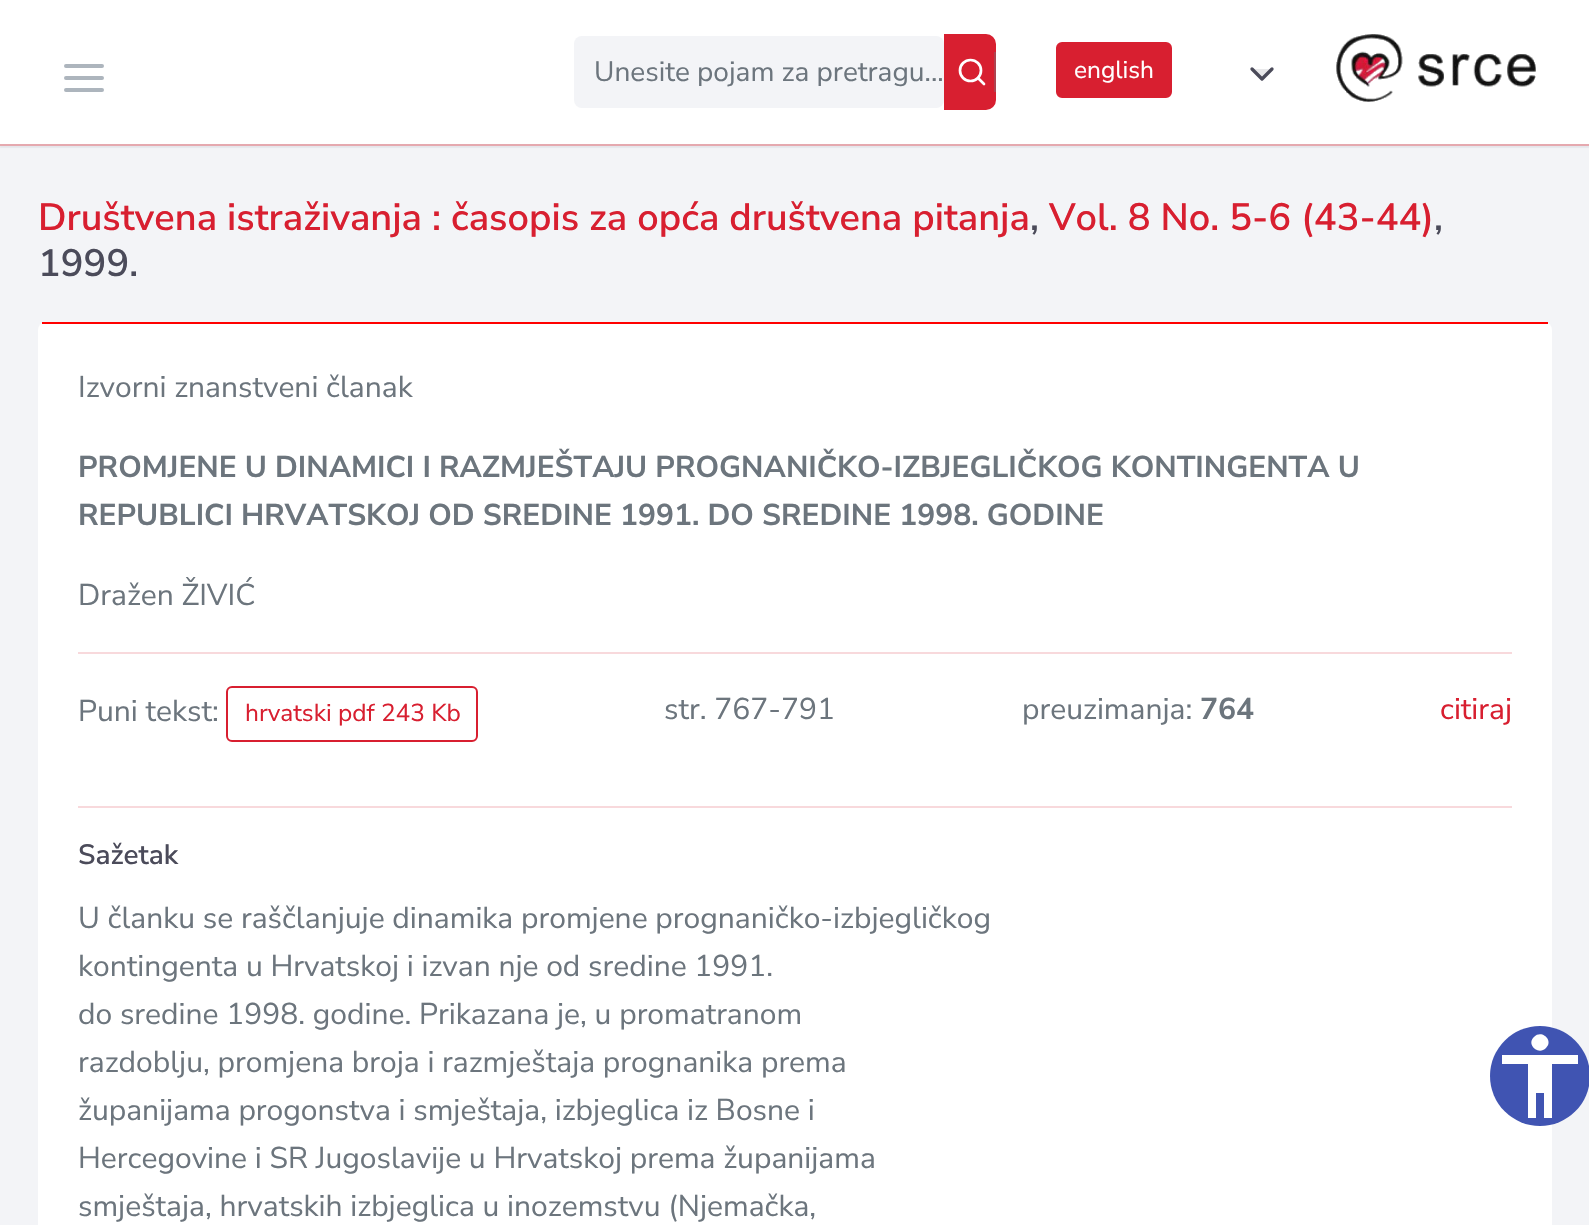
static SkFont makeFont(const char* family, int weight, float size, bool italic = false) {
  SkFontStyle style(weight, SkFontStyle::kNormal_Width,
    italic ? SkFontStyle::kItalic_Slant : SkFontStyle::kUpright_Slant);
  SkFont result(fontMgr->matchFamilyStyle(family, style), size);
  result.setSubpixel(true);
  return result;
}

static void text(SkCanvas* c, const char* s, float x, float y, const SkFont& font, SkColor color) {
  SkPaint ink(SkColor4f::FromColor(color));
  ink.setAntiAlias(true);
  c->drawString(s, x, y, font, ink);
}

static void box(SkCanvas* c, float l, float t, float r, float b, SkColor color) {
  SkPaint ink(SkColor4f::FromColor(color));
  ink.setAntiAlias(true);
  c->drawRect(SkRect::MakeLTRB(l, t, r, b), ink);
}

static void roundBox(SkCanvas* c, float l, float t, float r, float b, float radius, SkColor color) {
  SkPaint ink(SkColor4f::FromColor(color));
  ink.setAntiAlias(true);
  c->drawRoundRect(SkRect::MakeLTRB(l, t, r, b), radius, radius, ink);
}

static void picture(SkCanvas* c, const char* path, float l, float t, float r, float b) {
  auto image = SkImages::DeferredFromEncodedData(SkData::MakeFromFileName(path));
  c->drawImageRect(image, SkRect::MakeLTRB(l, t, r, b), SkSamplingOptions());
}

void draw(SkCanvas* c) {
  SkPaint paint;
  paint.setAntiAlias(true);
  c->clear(0xfff3f4f7);
  paint.setColor(0x124b4b5a);
  paint.setMaskFilter(SkMaskFilter::MakeBlur(kNormal_SkBlurStyle, 0.5f));
  c->drawRect(SkRect::MakeLTRB(0, 146, 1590, 148), paint);
  paint.setMaskFilter(nullptr);
  box(c, 0, 144, 1589, 146, 0xfff1b1b6);
  paint.setMaskFilter(SkMaskFilter::MakeBlur(kNormal_SkBlurStyle, 0.5f));
  c->drawRect(SkRect::MakeLTRB(0, 2, 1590, 146), paint);
  paint.setMaskFilter(nullptr);
  box(c, 0, 0, 1589, 144, 0xffffffff);
  paint.setStyle(SkPaint::kStroke_Style);
  paint.setStrokeWidth(4);
  paint.setStrokeCap(SkPaint::kRound_Cap);
  paint.setStrokeJoin(SkPaint::kRound_Join);
  paint.setColor(0xffadb5bd);
  c->drawPath(SkPathBuilder().moveTo(66, 78).lineTo(102, 78).moveTo(66, 66).lineTo(102, 66).moveTo(66, 90).lineTo(102, 90).detach(), paint);
  roundBox(c, 574, 36, 944, 108, 8, 0xfff3f4f7);
  SkFont face1 = makeFont("Nunito Sans", 400, 28);
  text(c, "Unesite pojam za pretragu...", 594, 81, face1, 0xff6c757d);
  paint.setStyle(SkPaint::kFill_Style);
  paint.setColor(0xffd81f30);
  c->drawPath(SkPathBuilder().moveTo(945, 35).lineTo(986, 35).cubicTo(991, 35, 995, 39, 995, 44).lineTo(995, 100).cubicTo(995, 105, 991, 109, 986, 109).lineTo(945, 109).close().detach(), paint);
  paint.setStyle(SkPaint::kStroke_Style);
  paint.setStrokeWidth(2);
  paint.setStrokeCap(SkPaint::kButt_Cap);
  paint.setStrokeJoin(SkPaint::kMiter_Join);
  c->drawPath(SkPathBuilder().moveTo(945, 35).lineTo(986, 35).cubicTo(991, 35, 995, 39, 995, 44).lineTo(995, 100).cubicTo(995, 105, 991, 109, 986, 109).lineTo(945, 109).close().detach(), paint);
  box(c, 994, 52, 996, 92, 0xffae4350);
  paint.setStrokeWidth(2.7f);
  paint.setColor(0xffffffff);
  c->drawCircle(970.5f, 70.5f, 10.5f, paint);
  paint.setStrokeCap(SkPaint::kRound_Cap);
  paint.setStrokeJoin(SkPaint::kRound_Join);
  c->drawPath(SkPathBuilder().moveTo(984, 84).lineTo(978, 78).detach(), paint);
  paint.setStyle(SkPaint::kFill_Style);
  paint.setColor(0xffd81f30);
  c->drawRoundRect(SkRect::MakeLTRB(1057, 43, 1171, 97), 5, 5, paint);
  paint.setStyle(SkPaint::kStroke_Style);
  paint.setStrokeWidth(2);
  paint.setStrokeCap(SkPaint::kButt_Cap);
  paint.setStrokeJoin(SkPaint::kMiter_Join);
  c->drawRoundRect(SkRect::MakeLTRB(1057, 43, 1171, 97), 5, 5, paint);
  SkFont face2 = makeFont("Nunito Sans", 400, 24.5f);
  text(c, "english", 1074, 78, face2, 0xffffffff);
  paint.setStyle(SkPaint::kFill_Style);
  paint.setColor(0xffe9e9eb);
  c->drawPath(SkPathBuilder().moveTo(1252, 69).lineTo(1262, 79).lineTo(1272, 69).detach(), paint);
  paint.setStyle(SkPaint::kStroke_Style);
  paint.setStrokeWidth(3.3f);
  paint.setStrokeCap(SkPaint::kRound_Cap);
  paint.setStrokeJoin(SkPaint::kRound_Join);
  paint.setColor(0xff4b4b5a);
  c->drawPath(SkPathBuilder().moveTo(1252, 69).lineTo(1262, 79).lineTo(1272, 69).detach(), paint);
  picture(c, "img_01.png", 1336, 34, 1536, 102);
  SkFont face3 = makeFont("Nunito Sans", 600, 38);
  text(c, "Društvena istraživanja : časopis za opća društvena pitanja", 38, 230, face3, 0xffd81f30);
  text(c, ",", 1030, 230, face3, 0xff4b4b5a);
  text(c, "Vol. 8 No. 5-6 (43-44)", 1049, 230, face3, 0xffd81f30);
  text(c, ",", 1434, 230, face3, 0xff4b4b5a);
  text(c, "1999.", 38, 276, face3, 0xff4b4b5a);
  roundBox(c, 38, 322, 1552, 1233, 8, 0xffffffff);
  box(c, 42, 322, 1548, 324, 0xffff0000);
  SkFont face4 = makeFont("Nunito Sans", 400, 30);
  text(c, "Izvorni znanstveni članak", 78, 397, face4, 0xff6c757d);
  SkFont face5 = makeFont("Nunito Sans", 700, 30);
  text(c, "PROMJENE U DINAMICI I RAZMJEŠTAJU PROGNANIČKO-IZBJEGLIČKOG KONTINGENTA U", 78, 477, face5, 0xff6c757d);
  text(c, "REPUBLICI HRVATSKOJ OD SREDINE 1991. DO SREDINE 1998. GODINE", 78, 525, face5, 0xff6c757d);
  text(c, "Dražen ŽIVIĆ", 78, 605, face4, 0xff6c757d);
  box(c, 78, 652, 1512, 654, 0xfff8d9dc);
  text(c, "Puni tekst:", 78, 721, face4, 0xff6c757d);
  paint.setStrokeWidth(2);
  paint.setStrokeCap(SkPaint::kButt_Cap);
  paint.setStrokeJoin(SkPaint::kMiter_Join);
  paint.setColor(0xffd81f30);
  c->drawRoundRect(SkRect::MakeLTRB(227, 687, 477, 741), 5, 5, paint);
  text(c, "hrvatski pdf 243 Kb", 245, 721, face2, 0xffd81f30);
  text(c, "str. 767-791", 664, 719, face4, 0xff6c757d);
  text(c, "preuzimanja:", 1022, 719, face4, 0xff6c757d);
  text(c, "764", 1200, 719, face5, 0xff6c757d);
  text(c, "citiraj", 1440, 719, face4, 0xffd81f30);
  box(c, 78, 806, 1512, 808, 0xfff8d9dc);
  SkFont face6 = makeFont("Nunito Sans", 600, 28);
  text(c, "Sažetak", 78, 864, face6, 0xff4b4b5a);
  text(c, "U članku se raščlanjuje dinamika promjene prognaničko-izbjegličkog", 78, 928, face4, 0xff6c757d);
  text(c, "kontingenta u Hrvatskoj i izvan nje od sredine 1991.", 78, 976, face4, 0xff6c757d);
  text(c, "do sredine 1998. godine. Prikazana je, u promatranom", 78, 1024, face4, 0xff6c757d);
  text(c, "razdoblju, promjena broja i razmještaja prognanika prema", 78, 1072, face4, 0xff6c757d);
  text(c, "županijama progonstva i smještaja, izbjeglica iz Bosne i", 78, 1120, face4, 0xff6c757d);
  text(c, "Hercegovine i SR Jugoslavije u Hrvatskoj prema županijama", 78, 1168, face4, 0xff6c757d);
  text(c, "smještaja, hrvatskih izbjeglica u inozemstvu (Njemačka,", 78, 1216, face4, 0xff6c757d);
  paint.setStyle(SkPaint::kFill_Style);
  paint.setColor(0xff4054b2);
  c->drawCircle(1540, 1076, 50, paint);
  paint.setColor(0xffffffff);
  c->drawPath(SkPathBuilder().moveTo(1578, 1064).lineTo(1552, 1064).lineTo(1552, 1118).lineTo(1544, 1118).lineTo(1544, 1093).lineTo(1536, 1093).lineTo(1536, 1118).lineTo(1528, 1118).lineTo(1528, 1064).lineTo(1502, 1064).lineTo(1502, 1055).lineTo(1578, 1055).close().moveTo(1534, 1037).cubicTo(1542, 1029, 1554, 1041, 1546, 1048).cubicTo(1538, 1056, 1526, 1044, 1534, 1037).close().detach(), paint);
}
